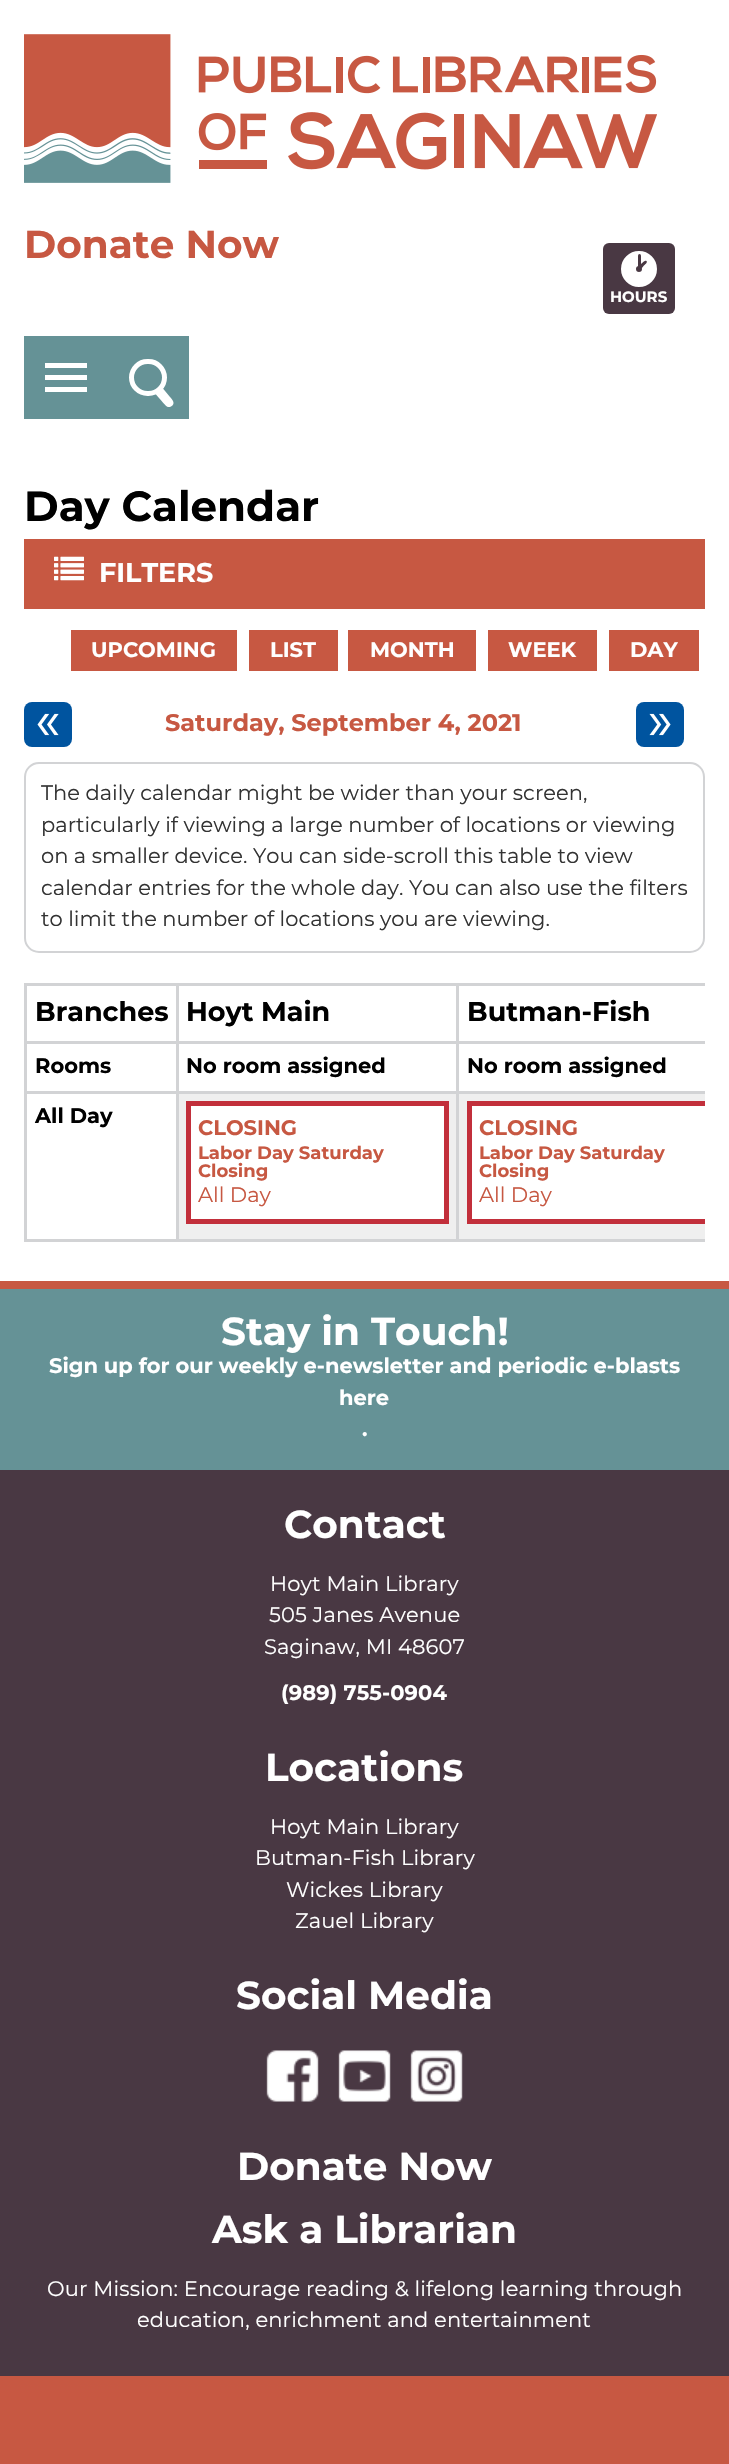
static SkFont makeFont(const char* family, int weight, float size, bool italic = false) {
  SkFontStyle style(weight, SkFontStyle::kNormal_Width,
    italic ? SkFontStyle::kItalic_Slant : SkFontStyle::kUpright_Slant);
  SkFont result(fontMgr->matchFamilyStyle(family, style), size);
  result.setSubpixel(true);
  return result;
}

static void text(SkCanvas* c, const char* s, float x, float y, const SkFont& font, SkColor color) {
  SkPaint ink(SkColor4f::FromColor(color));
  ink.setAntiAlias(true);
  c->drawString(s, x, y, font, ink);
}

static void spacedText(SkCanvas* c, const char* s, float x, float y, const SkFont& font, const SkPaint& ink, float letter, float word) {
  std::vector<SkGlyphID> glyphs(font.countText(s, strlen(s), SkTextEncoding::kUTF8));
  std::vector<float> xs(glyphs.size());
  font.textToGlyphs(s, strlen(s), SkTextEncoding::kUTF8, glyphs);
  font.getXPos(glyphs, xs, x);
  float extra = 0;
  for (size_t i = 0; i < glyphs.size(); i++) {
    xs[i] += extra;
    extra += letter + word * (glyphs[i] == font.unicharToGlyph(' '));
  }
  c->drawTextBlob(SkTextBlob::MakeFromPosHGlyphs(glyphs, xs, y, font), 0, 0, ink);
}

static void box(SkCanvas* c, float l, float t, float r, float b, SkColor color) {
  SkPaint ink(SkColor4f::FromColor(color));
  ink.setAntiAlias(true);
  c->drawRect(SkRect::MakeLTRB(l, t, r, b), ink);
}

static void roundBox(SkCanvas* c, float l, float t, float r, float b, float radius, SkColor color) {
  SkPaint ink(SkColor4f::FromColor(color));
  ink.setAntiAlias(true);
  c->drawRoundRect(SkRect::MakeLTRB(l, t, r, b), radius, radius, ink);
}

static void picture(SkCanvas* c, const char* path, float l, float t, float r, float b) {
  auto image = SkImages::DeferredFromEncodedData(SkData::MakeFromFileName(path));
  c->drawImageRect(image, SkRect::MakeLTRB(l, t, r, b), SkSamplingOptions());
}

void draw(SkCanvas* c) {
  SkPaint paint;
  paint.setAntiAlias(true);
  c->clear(0xffc75842);
  box(c, 0, 0, 729, 1281, 0xffffffff);
  picture(c, "img_01.png", 24, 34, 657, 183);
  SkFont face1 = makeFont("Montserrat", 700, 39);
  text(c, "Donate Now", 24, 258, face1, 0xffc75842);
  roundBox(c, 603, 243, 675, 314, 6, 0xff493843);
  paint.setStyle(SkPaint::kStroke_Style);
  paint.setStrokeWidth(15);
  paint.setColor(0xffffffff);
  c->drawCircle(639, 269, 10.5f, paint);
  roundBox(c, 638, 254, 641, 269, 1.5f, 0xff493843);
  paint.setStyle(SkPaint::kFill_Style);
  paint.setColor(0xff493843);
  c->drawPath(SkPathBuilder().moveTo(646.5f, 261).cubicTo(648, 262.5f, 644.5f, 265, 643.5f, 266).cubicTo(643, 267, 640.5f, 270, 639, 268.5f).cubicTo(637, 267, 640.5f, 264.5f, 641.5f, 263.5f).cubicTo(642.5f, 263, 644.5f, 259.5f, 646.5f, 261).close().detach(), paint);
  SkFont face2 = makeFont("Montserrat", 700, 15);
  text(c, "HOURS", 610, 302, face2, 0xffffffff);
  box(c, 24, 336, 189, 419, 0xff659296);
  box(c, 45, 363, 87, 368, 0xffffffff);
  box(c, 45, 375, 87, 380, 0xffffffff);
  box(c, 45, 387, 87, 392, 0xffffffff);
  paint.setColor(0xffffffff);
  c->drawPath(SkPathBuilder().moveTo(151.5f, 388.5f).cubicTo(152.5f, 390.5f, 165.5f, 406, 167, 406.5f).cubicTo(168, 407.5f, 170, 407, 171, 406.5f).cubicTo(176, 404, 172.5f, 399.5f, 170, 397).lineTo(158, 382.5f).cubicTo(161, 387, 155.5f, 392, 151.5f, 388.5f).close().detach(), paint);
  paint.setColor(0xff659296);
  c->drawRoundRect(SkRect::MakeLTRB(131.5f, 361.5f, 164.5f, 393.5f), 16, 16, paint);
  paint.setStyle(SkPaint::kStroke_Style);
  paint.setStrokeWidth(5);
  paint.setColor(0xffffffff);
  c->drawRoundRect(SkRect::MakeLTRB(131.5f, 361.5f, 164.5f, 393.5f), 16, 16, paint);
  SkFont face3 = makeFont("Montserrat", 700, 42);
  text(c, "Day Calendar", 24, 521, face3, 0xff000000);
  box(c, 24, 539, 705, 609, 0xffc75842);
  picture(c, "img_02.png", 54, 556, 84, 581);
  SkFont face4 = makeFont("Montserrat", 700, 27);
  text(c, "FILTERS", 99, 582, face4, 0xffffffff);
  box(c, 71, 630, 237, 671, 0xffc75842);
  SkFont face5 = makeFont("Montserrat", 700, 21);
  text(c, "UPCOMING", 91, 657, face5, 0xffffffff);
  box(c, 249, 630, 338, 671, 0xffc75842);
  text(c, "LIST", 270, 657, face5, 0xffffffff);
  box(c, 348, 630, 476, 671, 0xffc75842);
  text(c, "MONTH", 370, 657, face5, 0xffffffff);
  box(c, 488, 630, 597, 671, 0xffc75842);
  text(c, "WEEK", 508, 657, face5, 0xffffffff);
  box(c, 609, 630, 699, 671, 0xffc75842);
  text(c, "DAY", 630, 657, face5, 0xffffffff);
  roundBox(c, 24, 702, 72, 747, 8, 0xff00549f);
  picture(c, "img_03.png", 37, 713, 59, 736);
  SkFont face6 = makeFont("Montserrat", 700, 24);
  text(c, "Saturday, September 4, 2021", 165, 731, face6, 0xffc75842);
  roundBox(c, 636, 702, 684, 747, 8, 0xff00549f);
  picture(c, "img_04.png", 649, 713, 671, 736);
  paint.setStrokeWidth(2);
  paint.setColor(0xffd2d3d5);
  c->drawRoundRect(SkRect::MakeLTRB(25, 763, 704, 952), 14, 14, paint);
  SkFont face7 = makeFont("Montserrat", 400, 21);
  text(c, "The daily calendar might be wider than your screen,", 41, 800, face7, 0xff333333);
  text(c, "particularly if viewing a large number of locations or viewing", 41, 832, face7, 0xff333333);
  text(c, "on a smaller device. You can side-scroll this table to view", 41, 863, face7, 0xff333333);
  text(c, "calendar entries for the whole day. You can also use the filters", 41, 895, face7, 0xff333333);
  text(c, "to limit the number of locations you are viewing.", 41, 926, face7, 0xff333333);
  box(c, 24, 983, 705, 986, 0xffd2d3d5);
  box(c, 24, 983, 27, 1242, 0xffd2d3d5);
  box(c, 176, 986, 179, 1242, 0xffd2d3d5);
  box(c, 27, 1041, 179, 1044, 0xffd2d3d5);
  text(c, "Branches", 35, 1021, face4, 0xff000000);
  box(c, 456, 986, 459, 1242, 0xffd2d3d5);
  box(c, 179, 1041, 705, 1044, 0xffd2d3d5);
  text(c, "Hoyt Main", 186, 1021, face4, 0xff000000);
  text(c, "Butman-Fish", 467, 1021, face4, 0xff000000);
  text(c, "Rooms", 35, 1073, face5, 0xff000000);
  box(c, 27, 1091, 705, 1094, 0xffd2d3d5);
  text(c, "No room assigned", 186, 1073, face5, 0xff000000);
  text(c, "No room assigned", 467, 1073, face5, 0xff000000);
  text(c, "All Day", 35, 1123, face5, 0xff000000);
  box(c, 179, 1094, 456, 1239, 0xffefefef);
  box(c, 27, 1239, 705, 1242, 0xffd2d3d5);
  paint.setStyle(SkPaint::kFill_Style);
  paint.setColor(0xffffffff);
  c->drawRect(SkRect::MakeLTRB(188.5f, 1103.5f, 446.5f, 1221.5f), paint);
  paint.setStyle(SkPaint::kStroke_Style);
  paint.setStrokeWidth(5);
  paint.setColor(0xffc22f3b);
  c->drawRect(SkRect::MakeLTRB(188.5f, 1103.5f, 446.5f, 1221.5f), paint);
  text(c, "CLOSING", 198, 1135, face5, 0xffc75842);
  SkFont face8 = makeFont("Montserrat", 700, 18);
  text(c, "Labor Day Saturday", 198, 1159, face8, 0xffc75842);
  text(c, "Closing", 198, 1177, face8, 0xffc75842);
  text(c, "All Day", 198, 1202, face7, 0xffc75842);
  box(c, 459, 1094, 705, 1239, 0xffefefef);
  box(c, 472, 1106, 705, 1219, 0xffffffff);
  c->save();
  c->clipRect(SkRect::MakeLTRB(27, 986, 705, 1242));
  c->drawRect(SkRect::MakeLTRB(469.5f, 1103.5f, 726.5f, 1221.5f), paint);
  c->restore();
  text(c, "CLOSING", 479, 1135, face5, 0xffc75842);
  text(c, "Labor Day Saturday", 479, 1159, face8, 0xffc75842);
  text(c, "Closing", 479, 1177, face8, 0xffc75842);
  text(c, "All Day", 479, 1202, face7, 0xffc75842);
  box(c, 0, 1289, 729, 1470, 0xff659296);
  text(c, "Stay in Touch!", 221, 1345, face1, 0xffffffff);
  text(c, "Sign up for our weekly e-newsletter and periodic e-blasts", 49, 1373, face5, 0xffffffff);
  text(c, "here", 339, 1405, face5, 0xffffffff);
  text(c, ".", 362, 1436, face5, 0xffffffff);
  box(c, 0, 1470, 729, 2376, 0xff493843);
  text(c, "Contact", 284, 1538, face1, 0xffffffff);
  paint.setStyle(SkPaint::kFill_Style);
  paint.setColor(0xffffffff);
  spacedText(c, "Hoyt Main Library", 270, 1591, face7, paint, 0.15f, 0);
  spacedText(c, "505 Janes Avenue", 269, 1622, face7, paint, 0.15f, 0);
  spacedText(c, "Saginaw, MI 48607", 264, 1654, face7, paint, 0.15f, 0);
  spacedText(c, "(989) 755-0904", 281, 1700, face5, paint, 0.15f, 0);
  text(c, "Locations", 265, 1781, face1, 0xffffffff);
  spacedText(c, "Hoyt Main Library", 270, 1834, face7, paint, 0.15f, 0);
  spacedText(c, "Butman-Fish Library", 255, 1865, face7, paint, 0.15f, 0);
  spacedText(c, "Wickes Library", 286, 1897, face7, paint, 0.15f, 0);
  spacedText(c, "Zauel Library", 295, 1928, face7, paint, 0.15f, 0);
  text(c, "Social Media", 236, 2009, face1, 0xffffffff);
  picture(c, "img_05.png", 266, 2050, 319, 2102);
  picture(c, "img_06.png", 338, 2050, 391, 2102);
  picture(c, "img_07.png", 410, 2050, 463, 2102);
  text(c, "Donate Now", 237, 2180, face1, 0xffffffff);
  text(c, "Ask a Librarian", 212, 2243, face1, 0xffffffff);
  spacedText(c, "Our Mission: Encourage reading & lifelong learning through", 47, 2296, face7, paint, 0.15f, 0);
  spacedText(c, "education, enrichment and entertainment", 137, 2327, face7, paint, 0.15f, 0);
}
